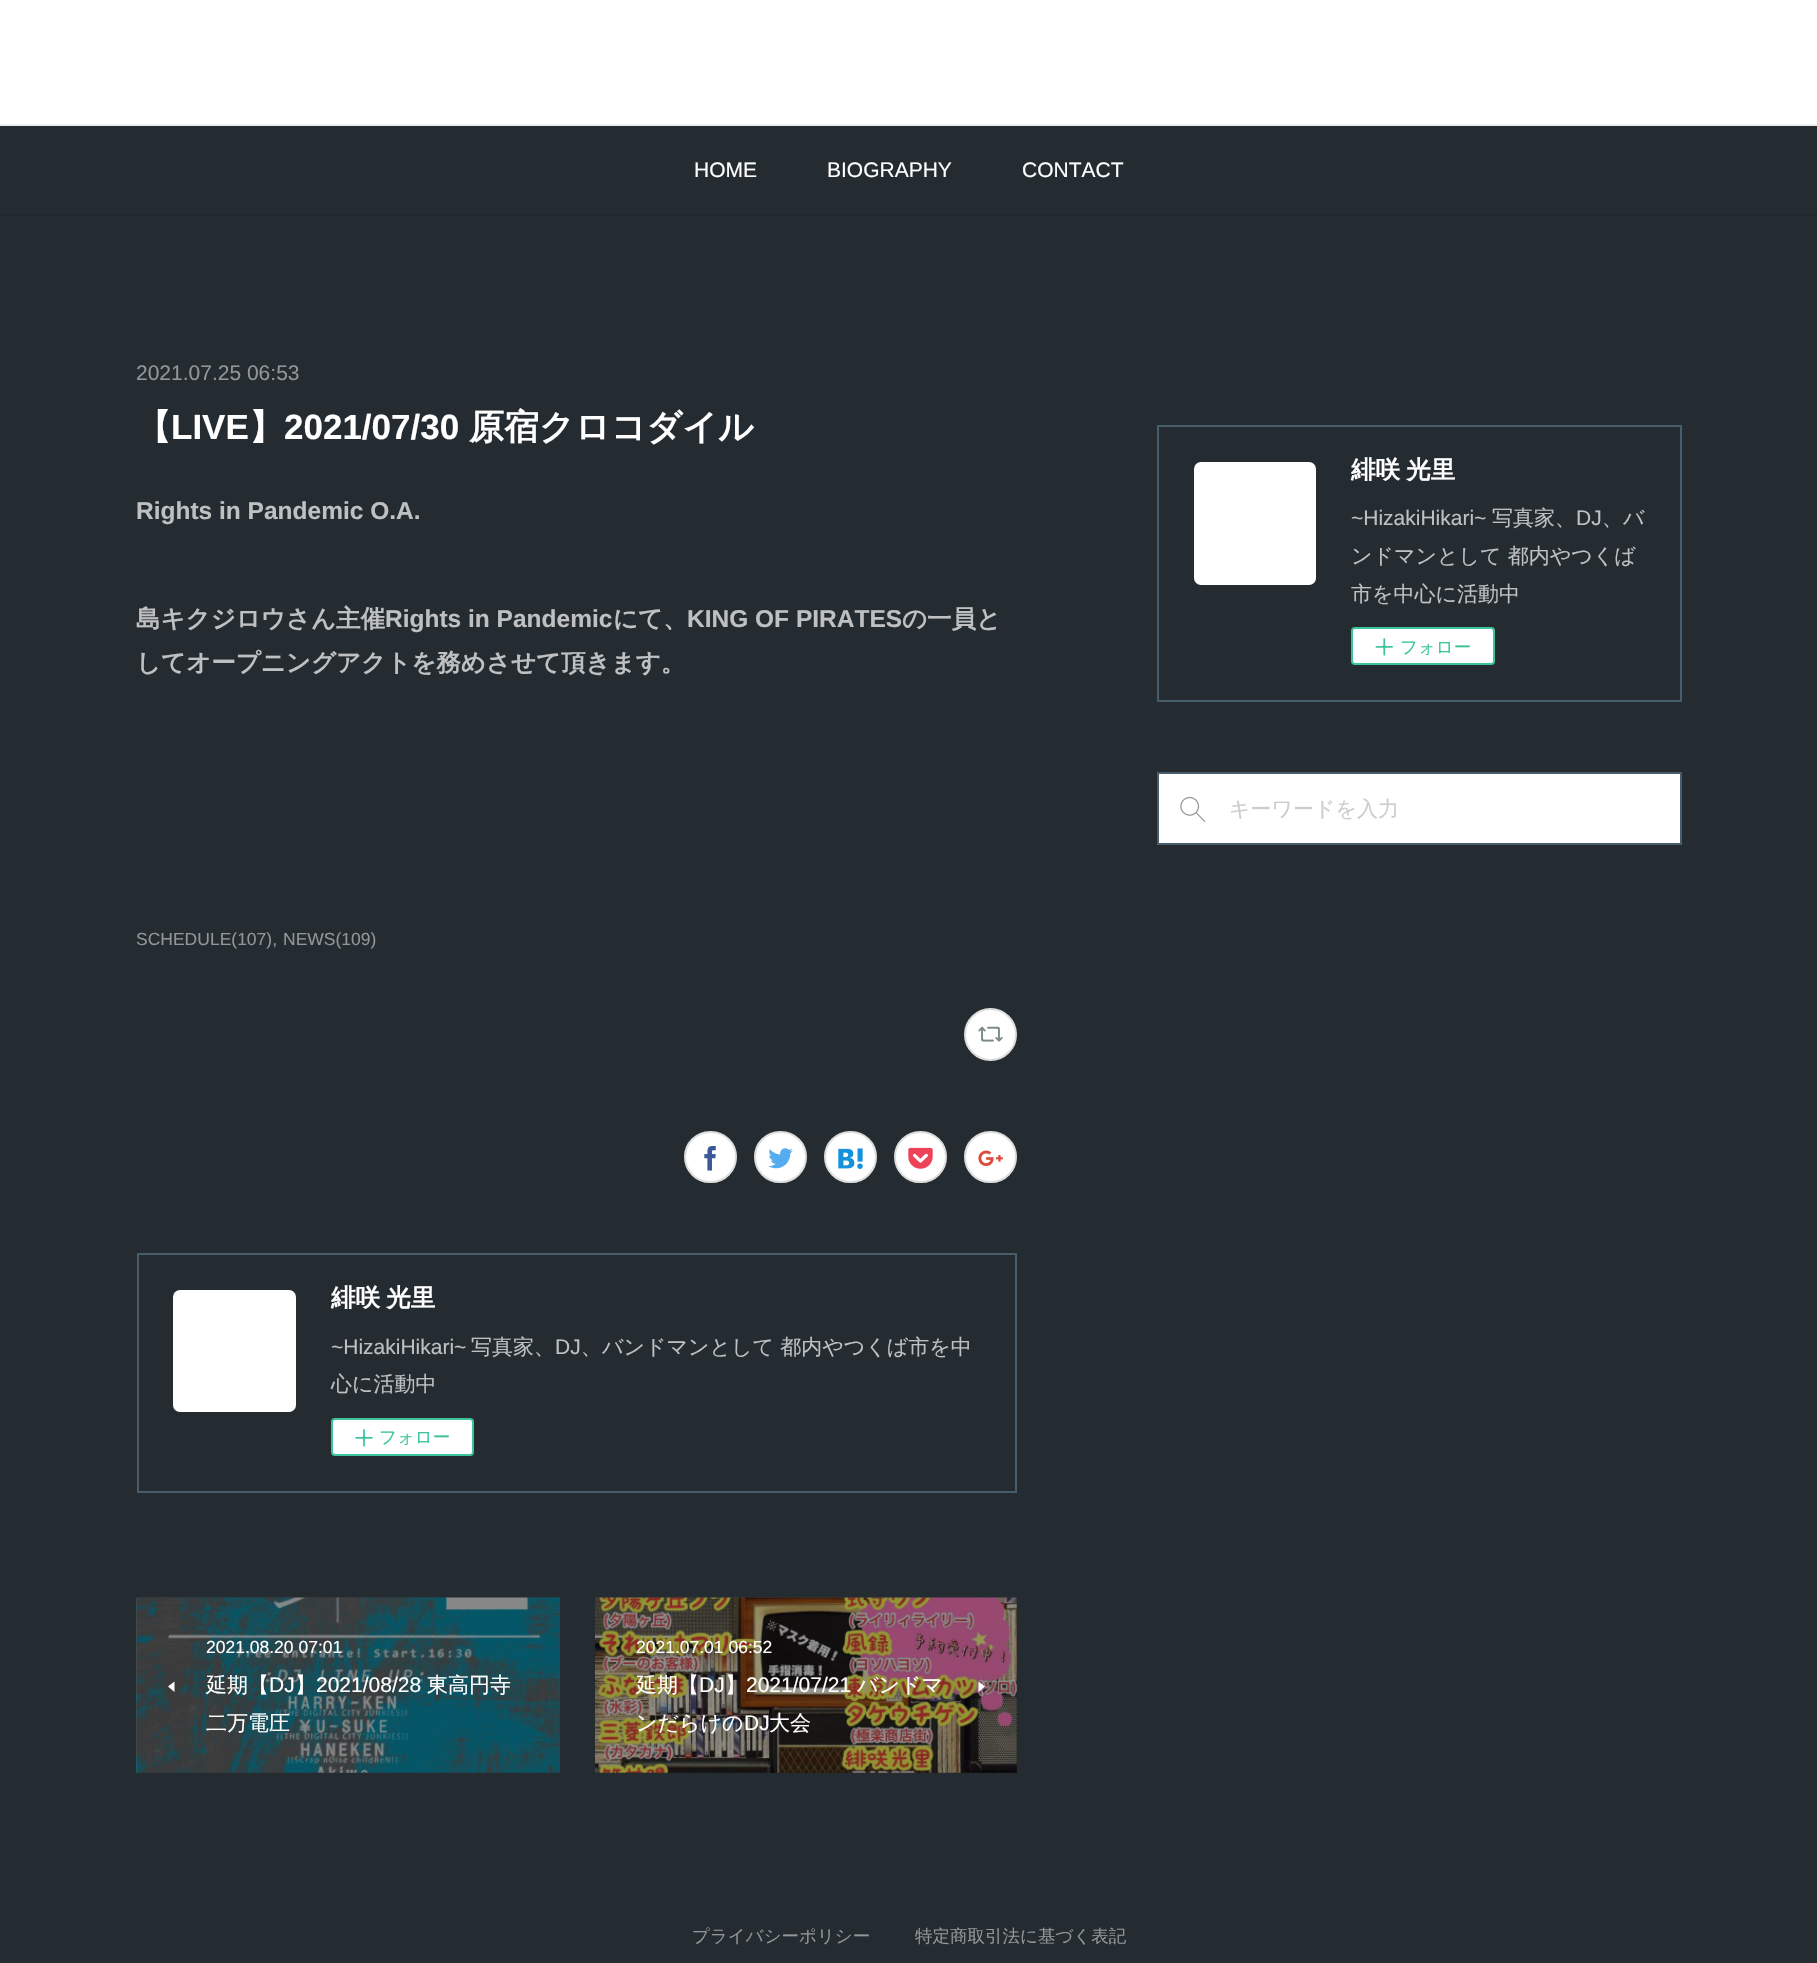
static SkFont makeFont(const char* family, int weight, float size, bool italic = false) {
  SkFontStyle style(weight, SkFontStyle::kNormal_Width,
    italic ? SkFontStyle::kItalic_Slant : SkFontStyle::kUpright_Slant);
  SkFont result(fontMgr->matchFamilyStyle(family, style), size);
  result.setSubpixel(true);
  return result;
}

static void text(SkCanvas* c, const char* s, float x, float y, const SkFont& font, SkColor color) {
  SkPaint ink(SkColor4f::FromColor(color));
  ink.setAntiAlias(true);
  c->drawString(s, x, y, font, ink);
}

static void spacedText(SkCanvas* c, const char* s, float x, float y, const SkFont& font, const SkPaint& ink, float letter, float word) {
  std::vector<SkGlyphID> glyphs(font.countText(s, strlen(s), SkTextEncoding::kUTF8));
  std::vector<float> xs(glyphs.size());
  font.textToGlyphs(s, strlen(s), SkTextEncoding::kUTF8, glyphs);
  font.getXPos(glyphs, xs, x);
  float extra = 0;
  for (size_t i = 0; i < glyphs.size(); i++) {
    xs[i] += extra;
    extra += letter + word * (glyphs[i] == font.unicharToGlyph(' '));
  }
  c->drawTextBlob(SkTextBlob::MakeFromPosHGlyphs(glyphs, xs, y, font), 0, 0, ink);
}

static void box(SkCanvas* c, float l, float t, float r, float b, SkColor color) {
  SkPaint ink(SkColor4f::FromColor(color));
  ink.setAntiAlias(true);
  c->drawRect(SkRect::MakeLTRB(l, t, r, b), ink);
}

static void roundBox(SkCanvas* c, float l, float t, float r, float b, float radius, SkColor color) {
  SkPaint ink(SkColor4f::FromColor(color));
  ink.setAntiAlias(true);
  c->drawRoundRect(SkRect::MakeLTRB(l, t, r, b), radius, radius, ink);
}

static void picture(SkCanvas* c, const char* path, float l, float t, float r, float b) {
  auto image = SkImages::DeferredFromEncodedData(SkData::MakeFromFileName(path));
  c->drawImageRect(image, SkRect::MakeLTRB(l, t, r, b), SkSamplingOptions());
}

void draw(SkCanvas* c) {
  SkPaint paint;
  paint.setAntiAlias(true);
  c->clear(0xff252c31);
  box(c, 595, 1598, 1017, 1773, 0xff161a1d);
  box(c, 0, 0, 1817, 124, 0xffffffff);
  box(c, 0, 124, 1817, 126, 0xffeeeeee);
  box(c, 0, 214, 1817, 216, 0xff21282c);
  SkFont face1 = makeFont("Liberation Sans", 400, 21);
  text(c, "HOME", 694, 177, face1, 0xffffffff);
  text(c, "BIOGRAPHY", 827, 177, face1, 0xffffffff);
  text(c, "CONTACT", 1022, 177, face1, 0xffffffff);
  text(c, "2021.07.25 06:53", 136, 380, face1, 0xff929698);
  SkFont face2 = makeFont("WenQuanYi Zen Hei", 700, 35);
  text(c, "【", 136, 439, face2, 0xffffffff);
  SkFont face3 = makeFont("Liberation Sans", 700, 35);
  text(c, "LIVE", 171, 439, face3, 0xffffffff);
  text(c, "】", 249, 439, face2, 0xffffffff);
  text(c, "2021/07/30", 284, 439, face3, 0xffffffff);
  text(c, "原宿クロコダイル", 469, 439, face2, 0xffffffff);
  SkFont face4 = makeFont("Liberation Sans", 700, 24.5f);
  text(c, "Rights in Pandemic O.A.", 136, 519, face4, 0xffbec0c1);
  SkFont face5 = makeFont("WenQuanYi Zen Hei", 700, 24.5f);
  text(c, "島キクジロウさん主催", 136, 627, face5, 0xffbec0c1);
  text(c, "Rights in Pandemic", 385, 627, face4, 0xffbec0c1);
  text(c, "にて、", 613, 627, face5, 0xffbec0c1);
  text(c, "KING OF PIRATES", 687, 627, face4, 0xffbec0c1);
  text(c, "の一員と", 902, 627, face5, 0xffbec0c1);
  text(c, "してオープニングアクトを務めさせて頂きます。", 136, 671, face5, 0xffbec0c1);
  SkFont face6 = makeFont("Liberation Sans", 400, 17.5f);
  text(c, "SCHEDULE(107),", 136, 945, face6, 0xff929698);
  text(c, "NEWS(109)", 283, 945, face6, 0xff929698);
  paint.setColor(0xffffffff);
  c->drawCircle(990.5f, 1034.5f, 25.5f, paint);
  paint.setStyle(SkPaint::kStroke_Style);
  paint.setStrokeWidth(2);
  paint.setColor(0xffdddddd);
  c->drawCircle(990.5f, 1034.5f, 25.5f, paint);
  picture(c, "img_01.png", 978, 1026, 1003, 1042);
  paint.setStyle(SkPaint::kFill_Style);
  paint.setColor(0xffffffff);
  c->drawRoundRect(SkRect::MakeLTRB(685, 1132, 736, 1182), 25, 25, paint);
  paint.setStyle(SkPaint::kStroke_Style);
  paint.setColor(0xffdddddd);
  c->drawRoundRect(SkRect::MakeLTRB(685, 1132, 736, 1182), 25, 25, paint);
  picture(c, "img_02.png", 704, 1146, 716, 1171);
  paint.setStyle(SkPaint::kFill_Style);
  paint.setColor(0xffffffff);
  c->drawRoundRect(SkRect::MakeLTRB(755, 1132, 806, 1182), 25, 25, paint);
  paint.setStyle(SkPaint::kStroke_Style);
  paint.setColor(0xffdddddd);
  c->drawRoundRect(SkRect::MakeLTRB(755, 1132, 806, 1182), 25, 25, paint);
  picture(c, "img_03.png", 768, 1148, 793, 1169);
  paint.setStyle(SkPaint::kFill_Style);
  paint.setColor(0xffffffff);
  c->drawRoundRect(SkRect::MakeLTRB(825, 1132, 876, 1182), 25, 25, paint);
  paint.setStyle(SkPaint::kStroke_Style);
  paint.setColor(0xffdddddd);
  c->drawRoundRect(SkRect::MakeLTRB(825, 1132, 876, 1182), 25, 25, paint);
  picture(c, "img_04.png", 838, 1148, 863, 1169);
  paint.setStyle(SkPaint::kFill_Style);
  paint.setColor(0xffffffff);
  c->drawRoundRect(SkRect::MakeLTRB(895, 1132, 946, 1182), 25, 25, paint);
  paint.setStyle(SkPaint::kStroke_Style);
  paint.setColor(0xffdddddd);
  c->drawRoundRect(SkRect::MakeLTRB(895, 1132, 946, 1182), 25, 25, paint);
  picture(c, "img_05.png", 908, 1147, 933, 1169);
  paint.setStyle(SkPaint::kFill_Style);
  paint.setColor(0xffffffff);
  c->drawRoundRect(SkRect::MakeLTRB(965, 1132, 1016, 1182), 25, 25, paint);
  paint.setStyle(SkPaint::kStroke_Style);
  paint.setColor(0xffdddddd);
  c->drawRoundRect(SkRect::MakeLTRB(965, 1132, 1016, 1182), 25, 25, paint);
  picture(c, "img_06.png", 978, 1150, 1003, 1166);
  paint.setColor(0xff485d6c);
  c->drawRect(SkRect::MakeLTRB(138, 1254, 1016, 1492), paint);
  roundBox(c, 173, 1290, 296, 1412, 7, 0xffffffff);
  paint.setStyle(SkPaint::kFill_Style);
  paint.setColor(0xffffffff);
  spacedText(c, "緋咲 光里", 331, 1306, face5, paint, 0, -1);
  text(c, "~HizakiHikari~", 331, 1354, face1, 0xffbec0c1);
  SkFont face7 = makeFont("WenQuanYi Zen Hei", 500, 21);
  text(c, "写真家、", 471, 1354, face7, 0xffbec0c1);
  text(c, "DJ", 555, 1354, face1, 0xffbec0c1);
  text(c, "、バンドマンとして 都内やつくば市を中", 581, 1354, face7, 0xffbec0c1);
  text(c, "心に活動中", 331, 1391, face7, 0xffbec0c1);
  c->drawRoundRect(SkRect::MakeLTRB(332, 1419, 473, 1455), 3, 3, paint);
  paint.setStyle(SkPaint::kStroke_Style);
  paint.setColor(0xff3dc49d);
  c->drawRoundRect(SkRect::MakeLTRB(332, 1419, 473, 1455), 3, 3, paint);
  picture(c, "img_07.png", 355, 1429, 373, 1447);
  SkFont face8 = makeFont("WenQuanYi Zen Hei", 500, 17.5f);
  text(c, "フォロー", 379, 1443, face8, 0xff3dc49d);
  picture(c, "img_08.png", 136, 1597, 560, 1773);
  text(c, "2021.08.20 07:01", 206, 1653, face6, 0xffffffff);
  paint.setStyle(SkPaint::kFill_Style);
  paint.setColor(0xffffffff);
  c->drawPath(SkPathBuilder().moveTo(174.5f, 1692).lineTo(174.5f, 1681.5f).lineTo(168, 1686.5f).close().detach(), paint);
  text(c, "延期【", 206, 1692, face7, 0xffffffff);
  text(c, "DJ", 269, 1692, face1, 0xffffffff);
  text(c, "】", 295, 1692, face7, 0xffffffff);
  text(c, "2021/08/28", 316, 1692, face1, 0xffffffff);
  text(c, "東高円寺", 427, 1692, face7, 0xffffffff);
  text(c, "二万電圧", 206, 1730, face7, 0xffffffff);
  picture(c, "img_09.png", 595, 1597, 1017, 1773);
  text(c, "2021.07.01 06:52", 636, 1653, face6, 0xffffffff);
  text(c, "延期【", 636, 1692, face7, 0xffffffff);
  text(c, "DJ", 699, 1692, face1, 0xffffffff);
  text(c, "】", 725, 1692, face7, 0xffffffff);
  text(c, "2021/07/21", 746, 1692, face1, 0xffffffff);
  text(c, "バンドマ", 857, 1692, face7, 0xffffffff);
  text(c, "ンだらけの", 636, 1730, face7, 0xffffffff);
  text(c, "DJ", 744, 1730, face1, 0xffffffff);
  text(c, "大会", 769, 1730, face7, 0xffffffff);
  c->drawPath(SkPathBuilder().moveTo(978.5f, 1681.5f).lineTo(978.5f, 1692).lineTo(985, 1686.5f).close().detach(), paint);
  paint.setStyle(SkPaint::kStroke_Style);
  paint.setColor(0xff485d6c);
  c->drawRect(SkRect::MakeLTRB(1158, 426, 1681, 701), paint);
  roundBox(c, 1194, 462, 1316, 585, 7, 0xffffffff);
  paint.setStyle(SkPaint::kFill_Style);
  paint.setColor(0xffffffff);
  spacedText(c, "緋咲 光里", 1351, 478, face5, paint, 0, -1);
  text(c, "~HizakiHikari~", 1351, 525, face1, 0xffbec0c1);
  text(c, "写真家、", 1492, 525, face7, 0xffbec0c1);
  text(c, "DJ", 1576, 525, face1, 0xffbec0c1);
  text(c, "、バ", 1602, 525, face7, 0xffbec0c1);
  text(c, "ンドマンとして 都内やつくば", 1351, 563, face7, 0xffbec0c1);
  text(c, "市を中心に活動中", 1351, 601, face7, 0xffbec0c1);
  c->drawRoundRect(SkRect::MakeLTRB(1352, 628, 1494, 664), 3, 3, paint);
  paint.setStyle(SkPaint::kStroke_Style);
  paint.setColor(0xff3dc49d);
  c->drawRoundRect(SkRect::MakeLTRB(1352, 628, 1494, 664), 3, 3, paint);
  picture(c, "img_10.png", 1375, 638, 1393, 656);
  text(c, "フォロー", 1400, 653, face8, 0xff3dc49d);
  paint.setStyle(SkPaint::kFill_Style);
  paint.setColor(0xffffffff);
  c->drawRect(SkRect::MakeLTRB(1158, 773, 1681, 844), paint);
  paint.setStyle(SkPaint::kStroke_Style);
  paint.setColor(0xff485d6c);
  c->drawRect(SkRect::MakeLTRB(1158, 773, 1681, 844), paint);
  picture(c, "img_11.png", 1180, 796, 1206, 822);
  text(c, "キーワードを入力", 1229, 816, face7, 0xffcccccc);
  text(c, "プライバシーポリシー", 692, 1942, face8, 0xff929698);
  text(c, "特定商取引法に基づく表記", 915, 1942, face8, 0xff929698);
}
